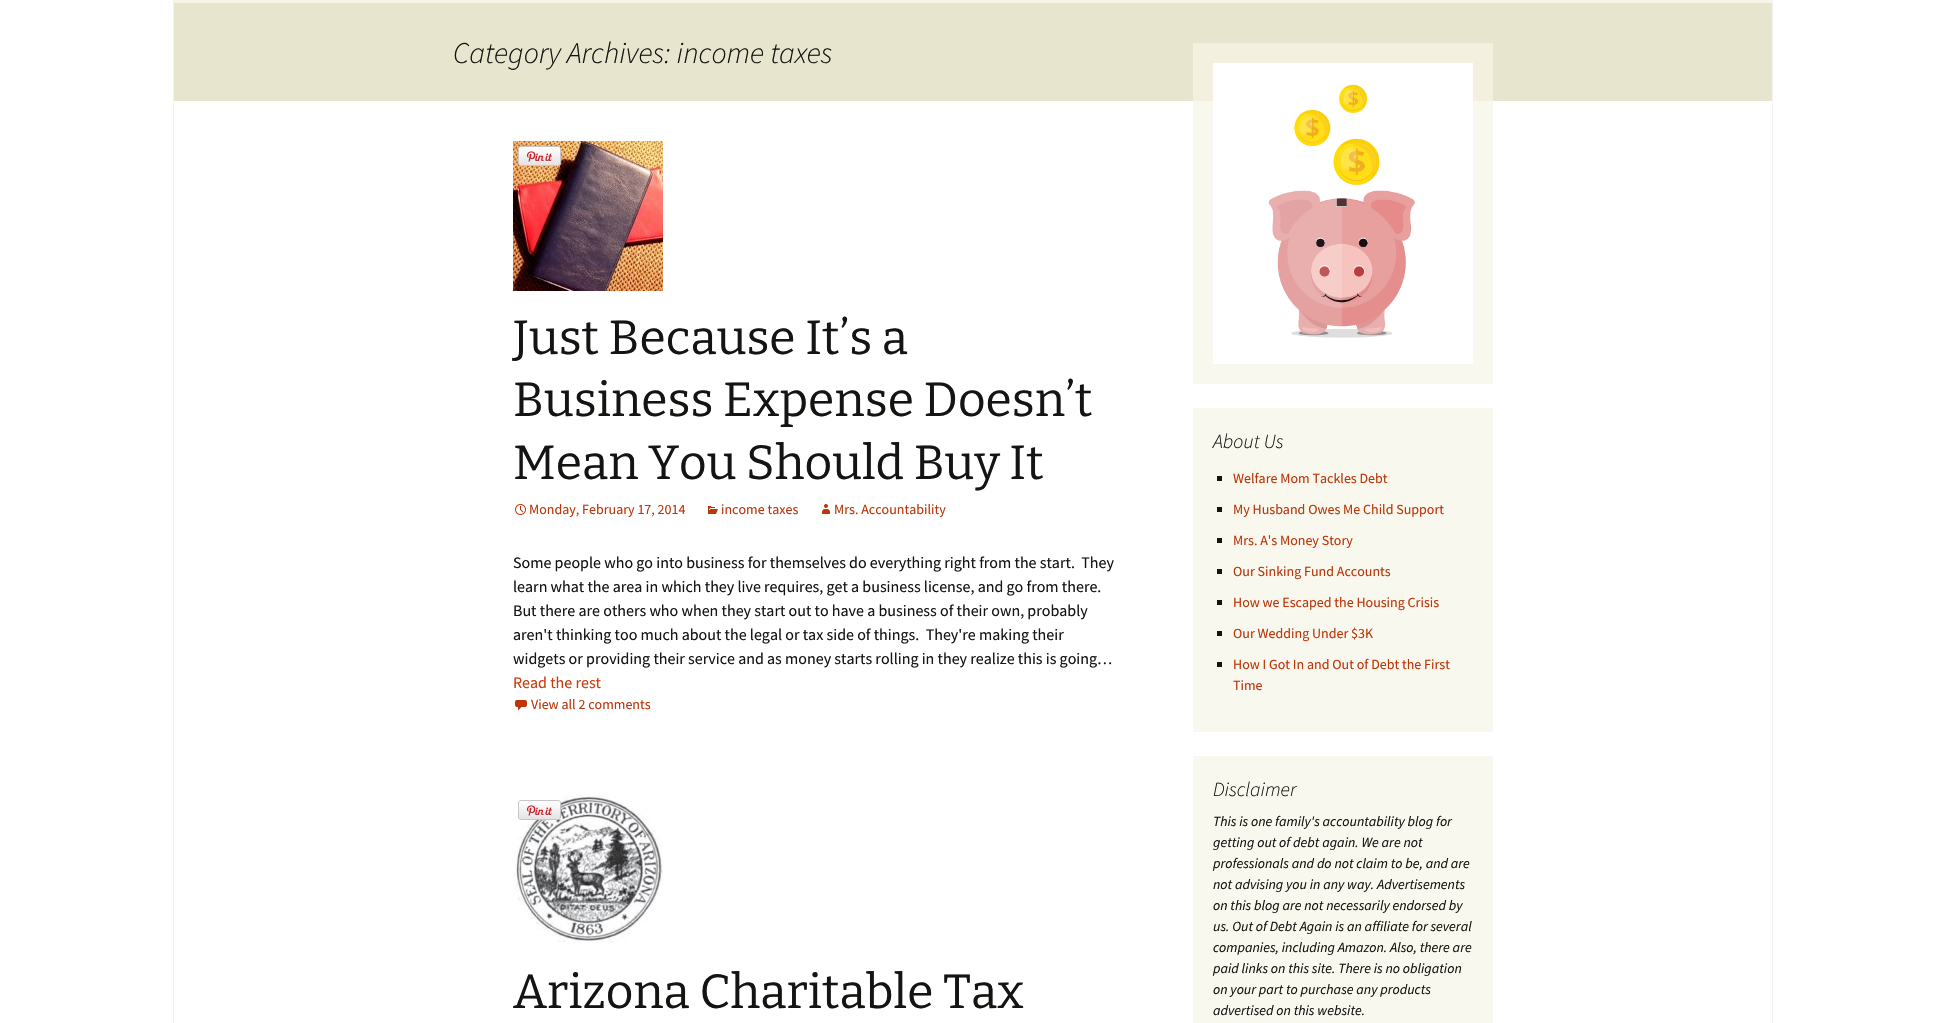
static SkFont makeFont(const char* family, int weight, float size, bool italic = false) {
  SkFontStyle style(weight, SkFontStyle::kNormal_Width,
    italic ? SkFontStyle::kItalic_Slant : SkFontStyle::kUpright_Slant);
  SkFont result(fontMgr->matchFamilyStyle(family, style), size);
  result.setSubpixel(true);
  return result;
}

static void text(SkCanvas* c, const char* s, float x, float y, const SkFont& font, SkColor color) {
  SkPaint ink(SkColor4f::FromColor(color));
  ink.setAntiAlias(true);
  c->drawString(s, x, y, font, ink);
}

static void box(SkCanvas* c, float l, float t, float r, float b, SkColor color) {
  SkPaint ink(SkColor4f::FromColor(color));
  ink.setAntiAlias(true);
  c->drawRect(SkRect::MakeLTRB(l, t, r, b), ink);
}

static void picture(SkCanvas* c, const char* path, float l, float t, float r, float b) {
  auto image = SkImages::DeferredFromEncodedData(SkData::MakeFromFileName(path));
  c->drawImageRect(image, SkRect::MakeLTRB(l, t, r, b), SkSamplingOptions());
}

void draw(SkCanvas* c) {
  SkPaint paint;
  paint.setAntiAlias(true);
  c->clear(0xffffffff);
  box(c, 1193, 101, 1493, 384, 0xfff9f8ee);
  box(c, 1772, 0, 1773, 1023, 0xfff2f2f2);
  box(c, 173, 0, 174, 1023, 0xfff2f2f2);
  box(c, 174, 0, 1772, 3, 0xfff7f5e7);
  box(c, 174, 3, 1772, 101, 0xffe8e5ce);
  box(c, 1193, 43, 1493, 101, 0xfff3f0e0);
  SkFont face1 = makeFont("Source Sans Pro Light", 300, 30, true);
  text(c, "Category Archives: income taxes", 453, 63, face1, 0xff141412);
  picture(c, "img_01.png", 513, 141, 663, 291);
  picture(c, "img_02.png", 518, 146, 561, 166);
  SkFont face2 = makeFont("Bitter", 100, 48);
  text(c, "Just Because It’s a", 513, 354, face2, 0xff141412);
  text(c, "Business Expense Doesn’t", 513, 416, face2, 0xff141412);
  text(c, "Mean You Should Buy It", 513, 479, face2, 0xff141412);
  picture(c, "img_03.png", 515, 504, 526, 515);
  SkFont face3 = makeFont("Source Sans Pro", 400, 14);
  text(c, "Monday, February 17, 2014", 529, 514, face3, 0xffbc360a);
  picture(c, "img_04.png", 708, 506, 718, 514);
  text(c, "income taxes", 721, 514, face3, 0xffbc360a);
  picture(c, "img_05.png", 822, 504, 830, 514);
  text(c, "Mrs. Accountability", 834, 514, face3, 0xffbc360a);
  SkFont face4 = makeFont("Source Sans Pro", 400, 16);
  text(c, "Some people who go into business for themselves do everything right from the start.  They", 513, 568, face4, 0xff141412);
  text(c, "learn what the area in which they live requires, get a business license, and go from there.", 513, 592, face4, 0xff141412);
  text(c, "But there are others who when they start out to have a business of their own, probably", 513, 616, face4, 0xff141412);
  text(c, "aren't thinking too much about the legal or tax side of things.  They're making their", 513, 640, face4, 0xff141412);
  text(c, "widgets or providing their service and as money starts rolling in they realize this is going…", 513, 664, face4, 0xff141412);
  text(c, "Read the rest", 513, 688, face4, 0xffca3c08);
  picture(c, "img_06.png", 515, 700, 527, 711);
  text(c, "View all 2 comments", 531, 709, face3, 0xffbc360a);
  picture(c, "img_07.png", 514, 795, 663, 943);
  picture(c, "img_08.png", 518, 800, 561, 820);
  text(c, "Arizona Charitable Tax", 513, 1008, face2, 0xff141412);
  picture(c, "img_09.png", 1213, 63, 1473, 364);
  box(c, 1193, 408, 1493, 732, 0xfff9f8ee);
  SkFont face5 = makeFont("Source Sans Pro Light", 300, 20, true);
  text(c, "About Us", 1213, 448, face5, 0xff141412);
  box(c, 1217, 476, 1222, 481, 0xff141412);
  text(c, "Welfare Mom Tackles Debt", 1233, 483, face3, 0xffbc360a);
  box(c, 1217, 507, 1222, 512, 0xff141412);
  text(c, "My Husband Owes Me Child Support", 1233, 514, face3, 0xffbc360a);
  box(c, 1217, 538, 1222, 543, 0xff141412);
  text(c, "Mrs. A's Money Story", 1233, 545, face3, 0xffbc360a);
  box(c, 1217, 569, 1222, 574, 0xff141412);
  text(c, "Our Sinking Fund Accounts", 1233, 576, face3, 0xffbc360a);
  box(c, 1217, 600, 1222, 605, 0xff141412);
  text(c, "How we Escaped the Housing Crisis", 1233, 607, face3, 0xffbc360a);
  box(c, 1217, 631, 1222, 636, 0xff141412);
  text(c, "Our Wedding Under $3K", 1233, 638, face3, 0xffbc360a);
  box(c, 1217, 662, 1222, 667, 0xff141412);
  text(c, "How I Got In and Out of Debt the First", 1233, 669, face3, 0xffbc360a);
  text(c, "Time", 1233, 690, face3, 0xffbc360a);
  box(c, 1193, 756, 1493, 1023, 0xfff9f8ee);
  text(c, "Disclaimer", 1213, 796, face5, 0xff141412);
  SkFont face6 = makeFont("Source Sans Pro", 400, 14, true);
  text(c, "This is one family's accountability blog for", 1213, 826, face6, 0xff141412);
  text(c, "getting out of debt again. We are not", 1213, 847, face6, 0xff141412);
  text(c, "professionals and do not claim to be, and are", 1213, 868, face6, 0xff141412);
  text(c, "not advising you in any way. Advertisements", 1213, 889, face6, 0xff141412);
  text(c, "on this blog are not necessarily endorsed by", 1213, 910, face6, 0xff141412);
  text(c, "us. Out of Debt Again is an affiliate for several", 1213, 931, face6, 0xff141412);
  text(c, "companies, including Amazon. Also, there are", 1213, 952, face6, 0xff141412);
  text(c, "paid links on this site. There is no obligation", 1213, 973, face6, 0xff141412);
  text(c, "on your part to purchase any products", 1213, 994, face6, 0xff141412);
  text(c, "advertised on this website.", 1213, 1015, face6, 0xff141412);
}
